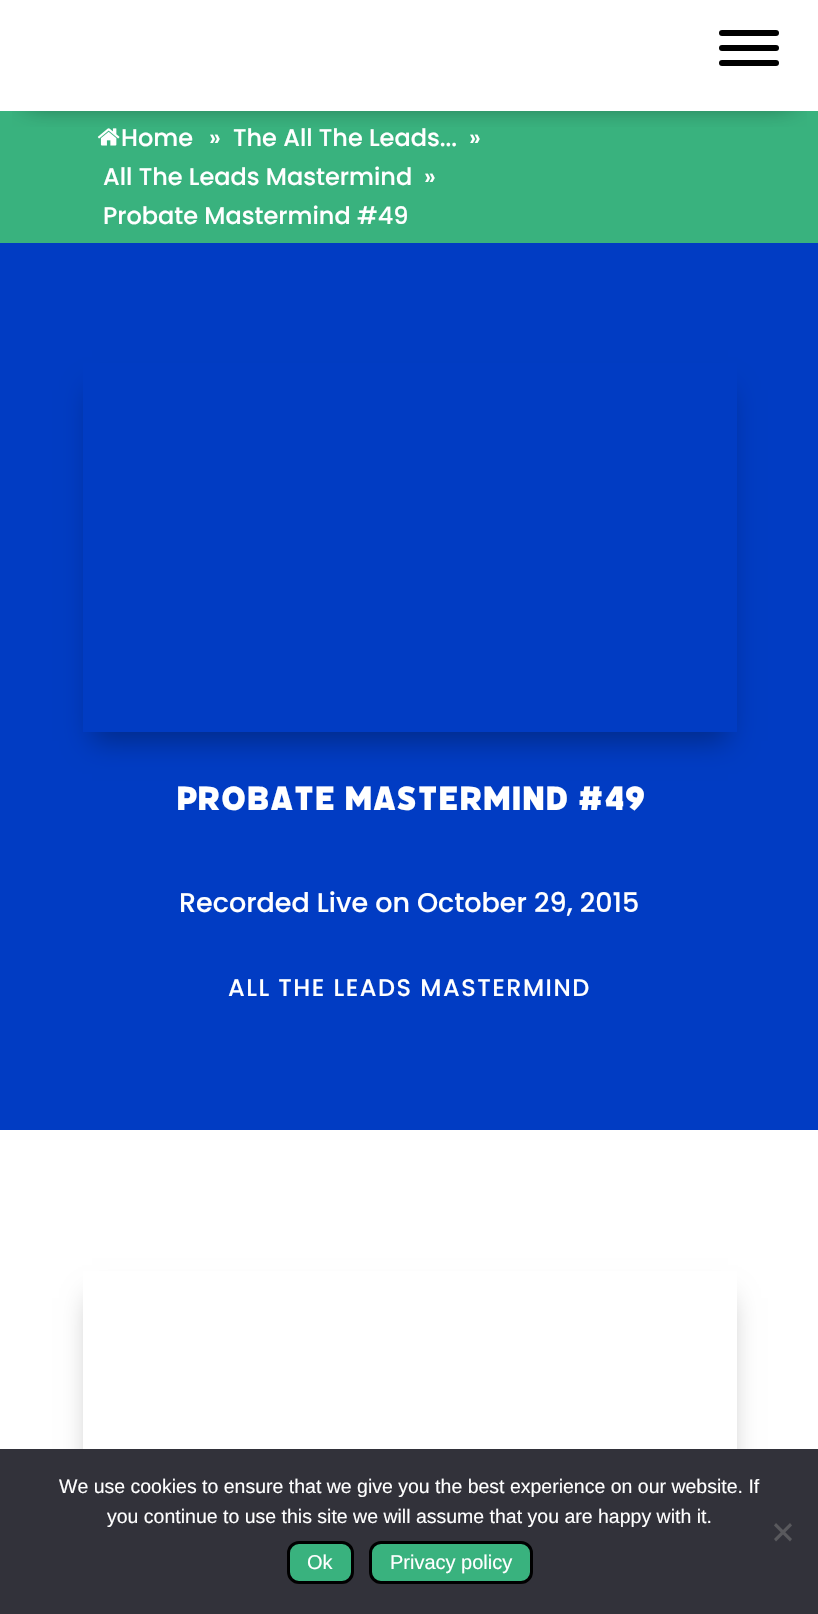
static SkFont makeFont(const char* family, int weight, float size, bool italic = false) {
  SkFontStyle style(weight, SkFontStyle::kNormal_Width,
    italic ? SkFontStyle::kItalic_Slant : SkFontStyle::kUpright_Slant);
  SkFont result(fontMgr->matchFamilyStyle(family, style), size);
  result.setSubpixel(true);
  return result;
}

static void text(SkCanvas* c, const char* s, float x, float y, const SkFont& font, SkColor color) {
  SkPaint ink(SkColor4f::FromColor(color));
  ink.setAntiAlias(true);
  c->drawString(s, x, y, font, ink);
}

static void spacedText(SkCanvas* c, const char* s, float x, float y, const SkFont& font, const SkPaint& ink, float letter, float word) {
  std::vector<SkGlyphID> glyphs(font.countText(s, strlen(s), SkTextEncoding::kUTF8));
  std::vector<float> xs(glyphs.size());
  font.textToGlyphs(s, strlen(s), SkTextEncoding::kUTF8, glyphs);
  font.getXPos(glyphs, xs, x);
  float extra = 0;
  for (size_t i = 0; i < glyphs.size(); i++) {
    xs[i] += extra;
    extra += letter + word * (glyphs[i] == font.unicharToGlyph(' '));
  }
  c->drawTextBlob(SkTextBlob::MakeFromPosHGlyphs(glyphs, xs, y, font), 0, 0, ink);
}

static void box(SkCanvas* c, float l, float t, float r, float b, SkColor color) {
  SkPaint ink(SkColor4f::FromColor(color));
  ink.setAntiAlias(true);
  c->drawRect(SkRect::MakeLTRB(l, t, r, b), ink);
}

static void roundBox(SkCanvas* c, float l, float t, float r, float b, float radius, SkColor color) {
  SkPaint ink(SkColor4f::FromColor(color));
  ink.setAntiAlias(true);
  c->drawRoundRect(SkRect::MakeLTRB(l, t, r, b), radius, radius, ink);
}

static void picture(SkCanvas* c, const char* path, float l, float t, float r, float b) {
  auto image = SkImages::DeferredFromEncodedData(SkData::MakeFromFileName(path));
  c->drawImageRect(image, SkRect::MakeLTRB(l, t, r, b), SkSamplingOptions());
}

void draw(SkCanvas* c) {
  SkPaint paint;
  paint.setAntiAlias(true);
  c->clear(0xffffffff);
  box(c, 0, 111, 818, 243, 0xff39b27e);
  picture(c, "img_01.png", 97, 128, 120, 146);
  c->save();
  c->clipRect(SkRect::MakeLTRB(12, 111, 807, 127));
  paint.setColor(0x99000000);
  paint.setMaskFilter(SkMaskFilter::MakeBlur(kNormal_SkBlurStyle, 13.5f));
  c->drawRect(SkRect::MakeLTRB(27, 45, 792, 102), paint);
  paint.setMaskFilter(nullptr);
  c->restore();
  roundBox(c, 719, 30, 779, 36, 3, 0xff000000);
  roundBox(c, 719, 45, 779, 51, 3, 0xff000000);
  roundBox(c, 719, 60, 779, 66, 3, 0xff000000);
  SkFont face1 = makeFont("Poppins", 500, 24);
  text(c, "Home", 121, 146, face1, 0xffffffff);
  text(c, "»", 209, 146, face1, 0xffffffff);
  text(c, "The All The Leads...", 233, 146, face1, 0xffffffff);
  text(c, "»", 469, 146, face1, 0xffffffff);
  text(c, "All The Leads Mastermind", 103, 185, face1, 0xffffffff);
  text(c, "»", 424, 185, face1, 0xffffffff);
  text(c, "Probate Mastermind #49", 103, 224, face1, 0xffffffff);
  box(c, 0, 243, 818, 1130, 0xff013cc3);
  c->save();
  c->clipPath(SkPathBuilder(SkPathFillType::kEvenOdd).moveTo(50, 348).lineTo(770, 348).lineTo(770, 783).lineTo(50, 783).close().moveTo(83, 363).lineTo(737, 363).lineTo(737, 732).lineTo(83, 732).close().detach(), true);
  paint.setColor(0x4d000000);
  paint.setMaskFilter(SkMaskFilter::MakeBlur(kNormal_SkBlurStyle, 13.5f));
  c->drawRect(SkRect::MakeLTRB(92, 390, 728, 741), paint);
  paint.setMaskFilter(nullptr);
  c->restore();
  SkFont face2 = makeFont("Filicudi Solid", 700, 37.5f);
  paint.setColor(0xffffffff);
  spacedText(c, "Probate Mastermind #49", 176, 810, face2, paint, 0, 1);
  SkFont face3 = makeFont("Poppins", 500, 27);
  text(c, "Recorded Live on October 29, 2015", 179, 912, face3, 0xffffffff);
  spacedText(c, "ALL THE LEADS MASTERMIND", 228, 996, face1, paint, 1.5f, 0);
  c->save();
  c->clipPath(SkPathBuilder(SkPathFillType::kEvenOdd).moveTo(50, 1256).lineTo(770, 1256).lineTo(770, 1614).lineTo(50, 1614).close().moveTo(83, 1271).lineTo(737, 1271).lineTo(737, 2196).lineTo(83, 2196).close().detach(), true);
  paint.setColor(0x4d000000);
  paint.setMaskFilter(SkMaskFilter::MakeBlur(kNormal_SkBlurStyle, 13.5f));
  c->drawRect(SkRect::MakeLTRB(92, 1298, 728, 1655), paint);
  paint.setMaskFilter(nullptr);
  c->restore();
  box(c, 0, 1449, 818, 1614, 0xff32323a);
  SkFont face4 = makeFont("Liberation Sans", 400, 19.5f);
  text(c, "We use cookies to ensure that we give you the best experience on our website. If", 59, 1493, face4, 0xffffffff);
  text(c, "you continue to use this site we will assume that you are happy with it.", 107, 1523, face4, 0xffffffff);
  paint.setColor(0xff59595d);
  c->drawPath(SkPathBuilder().moveTo(790, 1523).lineTo(792, 1525.5f).lineTo(776, 1541.5f).lineTo(774, 1539).close().detach(), paint);
  c->drawPath(SkPathBuilder().moveTo(774, 1525.5f).lineTo(776, 1523).lineTo(792, 1539).lineTo(790, 1541.5f).close().detach(), paint);
  paint.setColor(0xff39b27e);
  c->drawRoundRect(SkRect::MakeLTRB(288.5f, 1542.5f, 352.5f, 1582.5f), 10.5f, 10.5f, paint);
  paint.setStyle(SkPaint::kStroke_Style);
  paint.setStrokeWidth(3);
  paint.setColor(0xff000000);
  c->drawRoundRect(SkRect::MakeLTRB(288.5f, 1542.5f, 352.5f, 1582.5f), 10.5f, 10.5f, paint);
  SkFont face5 = makeFont("Liberation Sans", 400, 20);
  text(c, "Ok", 307, 1569, face5, 0xffffffff);
  paint.setStyle(SkPaint::kFill_Style);
  paint.setColor(0xff39b27e);
  c->drawRoundRect(SkRect::MakeLTRB(370.5f, 1542.5f, 531.5f, 1582.5f), 10.5f, 10.5f, paint);
  paint.setStyle(SkPaint::kStroke_Style);
  paint.setColor(0xff000000);
  c->drawRoundRect(SkRect::MakeLTRB(370.5f, 1542.5f, 531.5f, 1582.5f), 10.5f, 10.5f, paint);
  text(c, "Privacy policy", 390, 1569, face5, 0xffffffff);
}
